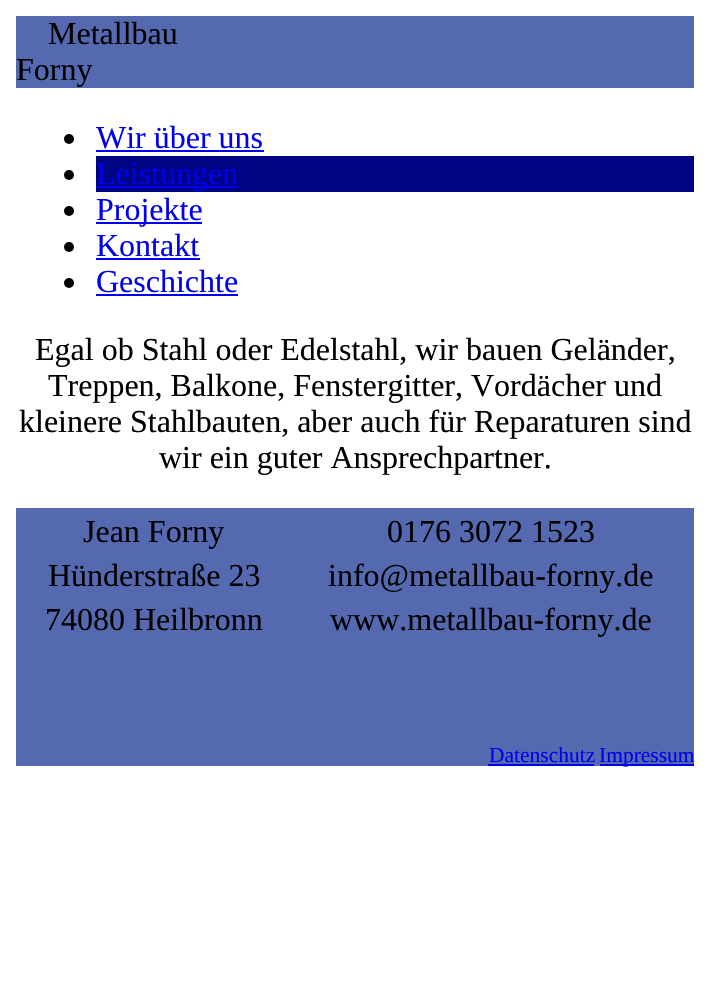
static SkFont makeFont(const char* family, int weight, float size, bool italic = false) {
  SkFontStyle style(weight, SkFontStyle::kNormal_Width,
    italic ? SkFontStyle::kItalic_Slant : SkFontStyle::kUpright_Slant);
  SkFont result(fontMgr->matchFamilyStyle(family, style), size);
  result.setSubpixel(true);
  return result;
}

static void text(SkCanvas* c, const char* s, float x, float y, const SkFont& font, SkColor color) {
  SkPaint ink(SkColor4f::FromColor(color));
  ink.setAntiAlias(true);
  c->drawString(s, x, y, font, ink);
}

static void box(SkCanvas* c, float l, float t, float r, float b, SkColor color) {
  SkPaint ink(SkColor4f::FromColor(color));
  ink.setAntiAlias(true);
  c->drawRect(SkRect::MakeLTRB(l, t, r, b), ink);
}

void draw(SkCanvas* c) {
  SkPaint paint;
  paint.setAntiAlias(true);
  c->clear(0xffffffff);
  box(c, 16, 16, 694, 88, 0xff5569b1);
  SkFont face1 = makeFont("Liberation Serif", 400, 32);
  text(c, "Metallbau", 48, 44, face1, 0xff000000);
  text(c, "Forny", 16, 80, face1, 0xff000000);
  paint.setColor(0xff000000);
  c->drawCircle(69, 139, 5, paint);
  text(c, "Wir über uns", 96, 148, face1, 0xff0000ee);
  box(c, 96, 150, 264, 152, 0xff0000ee);
  box(c, 96, 156, 694, 192, 0xff000482);
  c->drawCircle(69, 175, 5, paint);
  box(c, 96, 186, 238, 188, 0xff0000ee);
  text(c, "Leistungen", 96, 184, face1, 0xff0000ee);
  c->drawCircle(69, 211, 5, paint);
  box(c, 96, 222, 202, 224, 0xff0000ee);
  text(c, "Projekte", 96, 220, face1, 0xff0000ee);
  c->drawCircle(69, 247, 5, paint);
  text(c, "Kontakt", 96, 256, face1, 0xff0000ee);
  box(c, 96, 258, 200, 260, 0xff0000ee);
  c->drawCircle(69, 283, 5, paint);
  text(c, "Geschichte", 96, 292, face1, 0xff0000ee);
  box(c, 96, 294, 238, 296, 0xff0000ee);
  text(c, "Egal ob Stahl oder Edelstahl, wir bauen Geländer,", 35, 360, face1, 0xff000000);
  text(c, "Treppen, Balkone, Fenstergitter, Vordächer und", 48, 396, face1, 0xff000000);
  text(c, "kleinere Stahlbauten, aber auch für Reparaturen sind", 19, 432, face1, 0xff000000);
  text(c, "wir ein guter Ansprechpartner.", 159, 468, face1, 0xff000000);
  box(c, 16, 508, 694, 766, 0xff5569b1);
  text(c, "Jean Forny", 83, 542, face1, 0xff000000);
  text(c, "0176 3072 1523", 387, 542, face1, 0xff000000);
  text(c, "Hünderstraße 23", 48, 586, face1, 0xff000000);
  text(c, "info@metallbau-forny.de", 328, 586, face1, 0xff000000);
  text(c, "74080 Heilbronn", 45, 630, face1, 0xff000000);
  text(c, "www.metallbau-forny.de", 330, 630, face1, 0xff000000);
  SkFont face2 = makeFont("Liberation Serif", 400, 21.5f);
  text(c, "Datenschutz", 489, 762, face2, 0xff0000ee);
  box(c, 488, 764, 594, 766, 0xff0000ee);
  box(c, 600, 764, 694, 766, 0xff0000ee);
  text(c, "Impressum", 599, 762, face2, 0xff0000ee);
}
